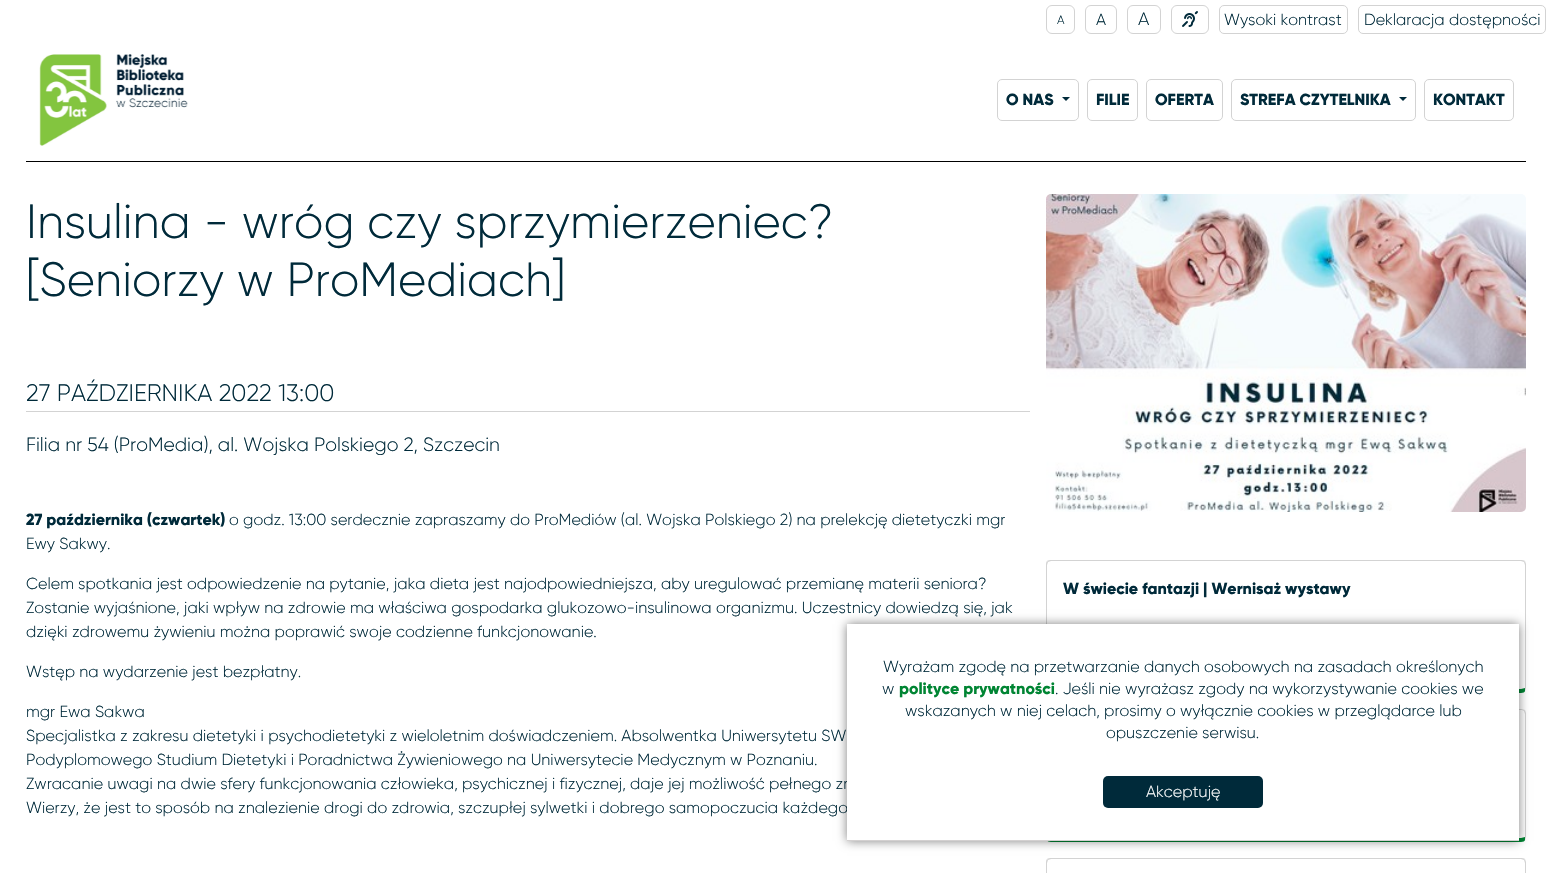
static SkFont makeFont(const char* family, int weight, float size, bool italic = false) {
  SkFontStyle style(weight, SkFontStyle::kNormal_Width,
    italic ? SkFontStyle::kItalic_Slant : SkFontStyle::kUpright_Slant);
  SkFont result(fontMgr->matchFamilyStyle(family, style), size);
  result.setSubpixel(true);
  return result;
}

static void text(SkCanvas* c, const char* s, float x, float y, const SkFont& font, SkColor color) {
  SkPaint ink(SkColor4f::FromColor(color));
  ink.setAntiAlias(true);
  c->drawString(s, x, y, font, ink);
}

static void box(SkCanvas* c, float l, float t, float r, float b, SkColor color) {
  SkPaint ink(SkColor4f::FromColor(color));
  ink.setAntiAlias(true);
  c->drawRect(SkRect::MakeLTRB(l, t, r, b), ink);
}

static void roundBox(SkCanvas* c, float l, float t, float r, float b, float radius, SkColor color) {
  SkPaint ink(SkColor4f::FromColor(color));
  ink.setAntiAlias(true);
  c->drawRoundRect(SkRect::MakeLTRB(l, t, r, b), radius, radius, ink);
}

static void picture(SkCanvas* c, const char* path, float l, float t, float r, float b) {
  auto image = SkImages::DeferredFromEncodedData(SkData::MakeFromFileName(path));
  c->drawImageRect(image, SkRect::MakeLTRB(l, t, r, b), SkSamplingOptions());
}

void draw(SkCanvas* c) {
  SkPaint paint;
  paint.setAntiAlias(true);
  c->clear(0xffffffff);
  paint.setStyle(SkPaint::kStroke_Style);
  paint.setStrokeWidth(1);
  paint.setColor(0xffd3d3d3);
  c->drawRoundRect(SkRect::MakeLTRB(1046.5f, 5.5f, 1074.5f, 33.5f), 5.5f, 5.5f, paint);
  SkFont face1 = makeFont("Gilroy", 300, 12);
  text(c, "A", 1057, 24, face1, 0xff002a3a);
  c->drawRoundRect(SkRect::MakeLTRB(1085.5f, 5.5f, 1116.5f, 33.5f), 5.5f, 5.5f, paint);
  SkFont face2 = makeFont("Gilroy", 300, 16);
  text(c, "A", 1096, 25, face2, 0xff002a3a);
  c->drawRoundRect(SkRect::MakeLTRB(1127.5f, 5.5f, 1160.5f, 33.5f), 5.5f, 5.5f, paint);
  SkFont face3 = makeFont("Gilroy", 300, 18);
  text(c, "A", 1138, 25, face3, 0xff002a3a);
  c->drawRoundRect(SkRect::MakeLTRB(1171.5f, 5.5f, 1208.5f, 33.5f), 5.5f, 5.5f, paint);
  picture(c, "img_01.png", 1182, 11, 1198, 27);
  c->drawRoundRect(SkRect::MakeLTRB(1219.5f, 5.5f, 1347.5f, 33.5f), 4.5f, 4.5f, paint);
  text(c, "Wysoki kontrast", 1224, 25, face2, 0xff002a3a);
  c->drawRoundRect(SkRect::MakeLTRB(1358.5f, 5.5f, 1545.5f, 33.5f), 4.5f, 4.5f, paint);
  text(c, "Deklaracja dostępności", 1364, 25, face2, 0xff002a3a);
  picture(c, "img_02.png", 39, 54, 188, 146);
  c->drawRoundRect(SkRect::MakeLTRB(997.5f, 79.5f, 1078.5f, 120.5f), 4.5f, 4.5f, paint);
  SkFont face4 = makeFont("Gilroy", 800, 16);
  text(c, "O NAS", 1006, 105, face4, 0xff002a3a);
  paint.setStyle(SkPaint::kFill_Style);
  paint.setColor(0xff002a3a);
  c->drawPath(SkPathBuilder().moveTo(1062, 97).lineTo(1070, 97).lineTo(1066, 101).close().detach(), paint);
  paint.setStyle(SkPaint::kStroke_Style);
  paint.setColor(0xffd3d3d3);
  c->drawRoundRect(SkRect::MakeLTRB(1087.5f, 79.5f, 1137.5f, 120.5f), 4.5f, 4.5f, paint);
  text(c, "FILIE", 1096, 105, face4, 0xff002a3a);
  c->drawRoundRect(SkRect::MakeLTRB(1146.5f, 79.5f, 1222.5f, 120.5f), 4.5f, 4.5f, paint);
  text(c, "OFERTA", 1155, 105, face4, 0xff002a3a);
  c->drawRoundRect(SkRect::MakeLTRB(1231.5f, 79.5f, 1415.5f, 120.5f), 4.5f, 4.5f, paint);
  text(c, "STREFA CZYTELNIKA", 1240, 105, face4, 0xff002a3a);
  paint.setStyle(SkPaint::kFill_Style);
  paint.setColor(0xff002a3a);
  c->drawPath(SkPathBuilder().moveTo(1399, 97).lineTo(1407, 97).lineTo(1403, 101).close().detach(), paint);
  paint.setStyle(SkPaint::kStroke_Style);
  paint.setColor(0xffd3d3d3);
  c->drawRoundRect(SkRect::MakeLTRB(1424.5f, 79.5f, 1513.5f, 120.5f), 4.5f, 4.5f, paint);
  text(c, "KONTAKT", 1433, 105, face4, 0xff002a3a);
  box(c, 26, 161, 1526, 162, 0xff000000);
  SkFont face5 = makeFont("Gilroy", 300, 48);
  text(c, "Insulina - wróg czy sprzymierzeniec?", 26, 238, face5, 0xff002a3a);
  text(c, "[Seniorzy w ProMediach]", 26, 296, face5, 0xff002a3a);
  box(c, 26, 411, 1030, 412, 0xffd3d3d3);
  SkFont face6 = makeFont("Gilroy", 300, 24);
  text(c, "27 PAŹDZIERNIKA 2022 13:00", 26, 401, face6, 0xff002a3a);
  SkFont face7 = makeFont("Gilroy", 300, 19.2f);
  text(c, "Filia nr 54 (ProMedia), al. Wojska Polskiego 2, Szczecin", 26, 451, face7, 0xff002a3a);
  text(c, "27 października (czwartek)", 26, 525, face4, 0xff002a3a);
  text(c, "o godz. 13:00 serdecznie zapraszamy do ProMediów (al. Wojska Polskiego 2) na prelekcję dietetyczki mgr", 229, 525, face2, 0xff002a3a);
  text(c, "Ewy Sakwy.", 26, 549, face2, 0xff002a3a);
  text(c, "Celem spotkania jest odpowiedzenie na pytanie, jaka dieta jest najodpowiedniejsza, aby uregulować przemianę materii seniora?", 26, 589, face2, 0xff002a3a);
  text(c, "Zostanie wyjaśnione, jaki wpływ na zdrowie ma właściwa gospodarka glukozowo-insulinowa organizmu. Uczestnicy dowiedzą się, jak", 26, 613, face2, 0xff002a3a);
  text(c, "dzięki zdrowemu żywieniu można poprawić swoje codzienne funkcjonowanie.", 26, 637, face2, 0xff002a3a);
  text(c, "Wstęp na wydarzenie jest bezpłatny.", 26, 677, face2, 0xff002a3a);
  text(c, "mgr Ewa Sakwa", 26, 717, face2, 0xff002a3a);
  text(c, "Specjalistka z zakresu dietetyki i psychodietetyki z wieloletnim doświadczeniem. Absolwentka Uniwersytetu SW", 26, 741, face2, 0xff002a3a);
  text(c, "Podyplomowego Studium Dietetyki i Poradnictwa Żywieniowego na Uniwersytecie Medycznym w Poznaniu.", 26, 765, face2, 0xff002a3a);
  text(c, "Zwracanie uwagi na dwie sfery funkcjonowania człowieka, psychicznej i fizycznej, daje jej możliwość pełnego zr", 26, 789, face2, 0xff002a3a);
  text(c, "Wierzy, że jest to sposób na znalezienie drogi do zdrowia, szczupłej sylwetki i dobrego samopoczucia każdego", 26, 813, face2, 0xff002a3a);
  picture(c, "img_03.png", 1046, 194, 1526, 512);
  paint.setStyle(SkPaint::kFill_Style);
  c->drawPath(SkPathBuilder().moveTo(1051, 560).cubicTo(1050, 560, 1048, 560, 1047, 561).lineTo(1048, 562).cubicTo(1049, 562, 1050, 561, 1051, 561).lineTo(1521, 561).cubicTo(1522, 561, 1523, 562, 1524, 562).lineTo(1525, 561).cubicTo(1524, 560, 1522, 560, 1521, 560).close().detach(), paint);
  c->drawPath(SkPathBuilder().moveTo(1526, 688).lineTo(1526, 564).lineTo(1525, 561).lineTo(1524, 562).lineTo(1525, 565).lineTo(1525, 688).lineTo(1525, 691).close().detach(), paint);
  paint.setColor(0xff008533);
  c->drawPath(SkPathBuilder().moveTo(1051, 693).lineTo(1521, 693).cubicTo(1523, 693, 1525, 692, 1525, 691).lineTo(1525, 688).lineTo(1521, 689).lineTo(1051, 689).lineTo(1047, 688).lineTo(1047, 691).cubicTo(1047, 692, 1049, 693, 1051, 693).close().detach(), paint);
  paint.setColor(0xffd3d3d3);
  c->drawPath(SkPathBuilder().moveTo(1046, 565).lineTo(1046, 688).lineTo(1047, 691).lineTo(1047, 688).lineTo(1047, 565).lineTo(1048, 562).lineTo(1047, 561).cubicTo(1046, 562, 1046, 564, 1046, 565).close().detach(), paint);
  text(c, "W świecie fantazji | Wernisaż wystawy", 1063, 594, face4, 0xff002a3a);
  c->drawPath(SkPathBuilder().moveTo(1051, 709).cubicTo(1050, 709, 1048, 710, 1047, 710).lineTo(1048, 711).cubicTo(1049, 710, 1050, 710, 1051, 710).lineTo(1521, 710).cubicTo(1522, 710, 1523, 710, 1524, 711).lineTo(1525, 710).cubicTo(1524, 710, 1522, 709, 1521, 709).close().detach(), paint);
  c->drawPath(SkPathBuilder().moveTo(1526, 837).lineTo(1526, 713).lineTo(1525, 710).lineTo(1524, 711).lineTo(1525, 714).lineTo(1525, 837).lineTo(1525, 840).close().detach(), paint);
  paint.setColor(0xff008533);
  c->drawPath(SkPathBuilder().moveTo(1051, 842).lineTo(1521, 842).cubicTo(1523, 842, 1525, 841, 1525, 840).lineTo(1525, 837).lineTo(1521, 838).lineTo(1051, 838).lineTo(1047, 837).lineTo(1047, 840).cubicTo(1047, 841, 1049, 842, 1051, 842).close().detach(), paint);
  paint.setColor(0xffd3d3d3);
  c->drawPath(SkPathBuilder().moveTo(1051, 858).cubicTo(1050, 858, 1048, 858, 1047, 859).lineTo(1048, 860).cubicTo(1049, 860, 1050, 859, 1051, 859).lineTo(1521, 859).cubicTo(1522, 859, 1523, 860, 1524, 860).lineTo(1525, 859).cubicTo(1524, 858, 1522, 858, 1521, 858).close().detach(), paint);
  c->drawPath(SkPathBuilder().moveTo(1526, 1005).lineTo(1526, 862).lineTo(1525, 859).lineTo(1524, 860).lineTo(1525, 863).lineTo(1525, 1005).lineTo(1525, 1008).close().detach(), paint);
  c->drawPath(SkPathBuilder().moveTo(1046, 863).lineTo(1046, 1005).lineTo(1047, 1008).lineTo(1047, 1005).lineTo(1047, 863).lineTo(1048, 860).lineTo(1047, 859).cubicTo(1046, 860, 1046, 862, 1046, 863).close().detach(), paint);
  paint.setColor(0x80000000);
  paint.setMaskFilter(SkMaskFilter::MakeBlur(kNormal_SkBlurStyle, 5));
  c->drawRect(SkRect::MakeLTRB(847, 624, 1519, 841), paint);
  paint.setMaskFilter(nullptr);
  box(c, 847, 624, 1519, 840, 0xffffffff);
  box(c, 847, 840, 1519, 841, 0xffd3d0d0);
  text(c, "Wyrażam zgodę na przetwarzanie danych osobowych na zasadach określonych", 883, 672, face2, 0xff002a3a);
  text(c, "w", 882, 694, face2, 0xff002a3a);
  text(c, "polityce prywatności", 899, 694, face4, 0xff008533);
  text(c, ". Jeśli nie wyrażasz zgody na wykorzystywanie cookies we", 1055, 694, face2, 0xff002a3a);
  text(c, "wskazanych w niej celach, prosimy o wyłącznie cookies w przeglądarce lub", 905, 716, face2, 0xff002a3a);
  text(c, "opuszczenie serwisu.", 1106, 738, face2, 0xff002a3a);
  roundBox(c, 1103, 776, 1263, 808, 5, 0xff002a3a);
  text(c, "Akceptuję", 1146, 797, face2, 0xffffffff);
}
